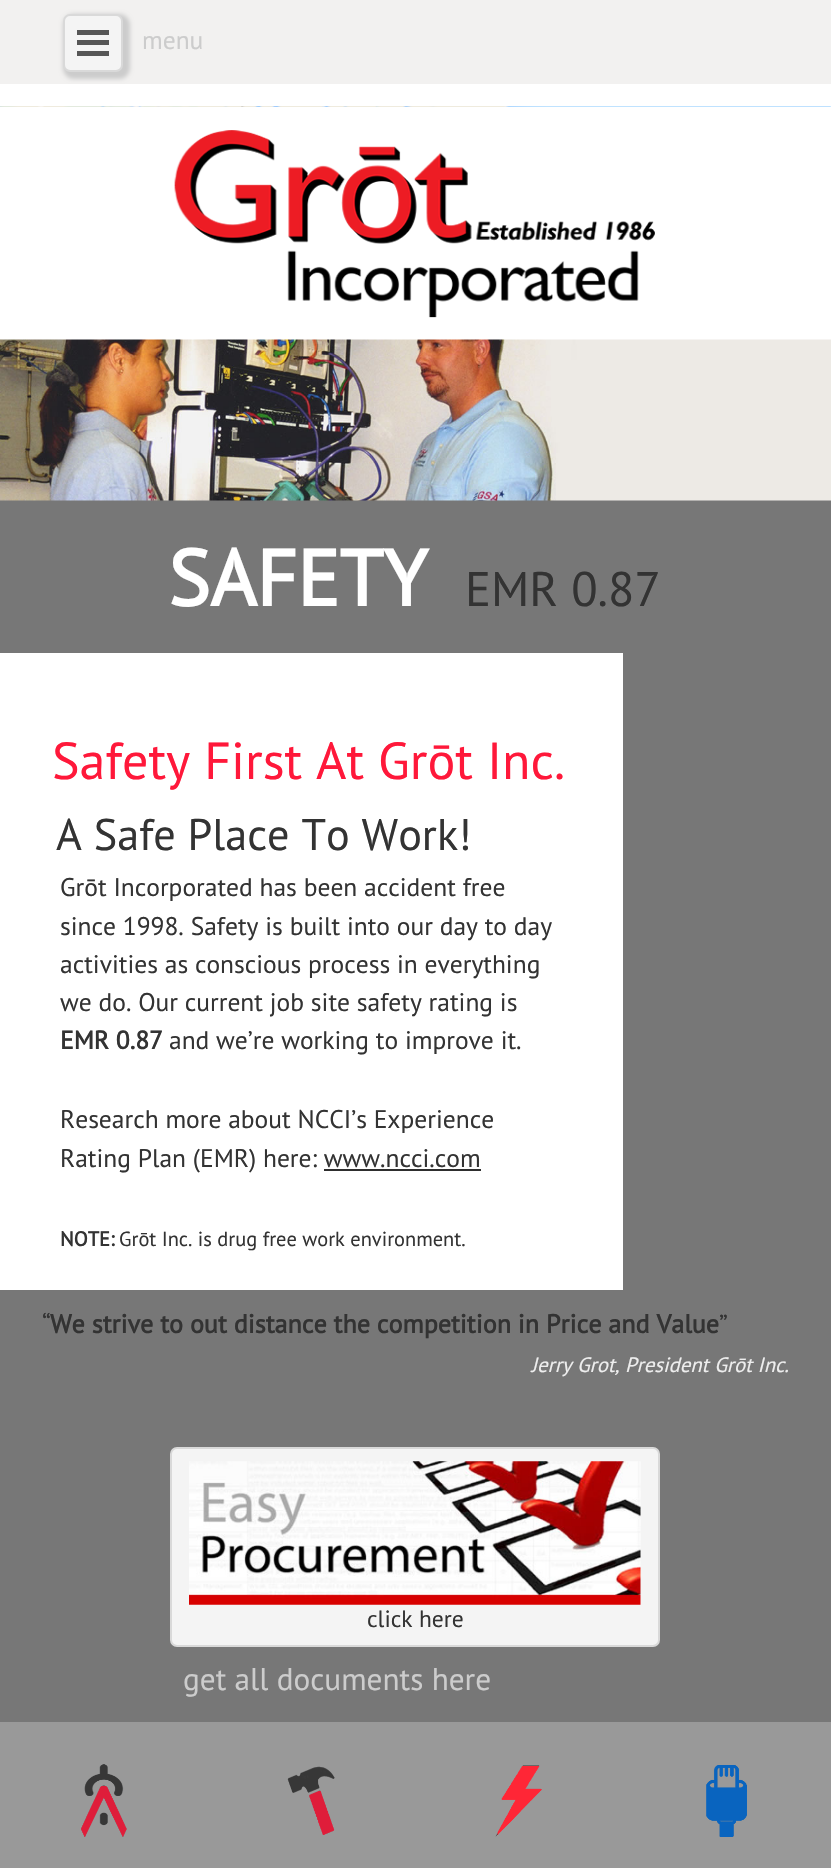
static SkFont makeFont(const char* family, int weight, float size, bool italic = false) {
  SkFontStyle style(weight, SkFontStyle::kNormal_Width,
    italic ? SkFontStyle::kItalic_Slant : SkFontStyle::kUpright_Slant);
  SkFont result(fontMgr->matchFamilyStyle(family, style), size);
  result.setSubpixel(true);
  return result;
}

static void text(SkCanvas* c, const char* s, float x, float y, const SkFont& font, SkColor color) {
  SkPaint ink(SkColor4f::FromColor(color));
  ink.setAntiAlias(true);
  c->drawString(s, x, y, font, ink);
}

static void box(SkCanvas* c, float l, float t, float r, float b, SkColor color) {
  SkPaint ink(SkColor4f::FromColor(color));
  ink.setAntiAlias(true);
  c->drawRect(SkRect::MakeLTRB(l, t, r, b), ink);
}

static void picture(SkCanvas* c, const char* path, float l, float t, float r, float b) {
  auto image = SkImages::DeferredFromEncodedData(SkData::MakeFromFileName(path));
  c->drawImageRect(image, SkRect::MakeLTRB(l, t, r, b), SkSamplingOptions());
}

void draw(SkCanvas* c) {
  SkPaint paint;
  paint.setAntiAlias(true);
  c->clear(0xffffffff);
  box(c, 0, 0, 831, 84, 0xfff2f1f0);
  paint.setColor(0xffcccccc);
  paint.setMaskFilter(SkMaskFilter::MakeBlur(kNormal_SkBlurStyle, 2));
  c->drawRoundRect(SkRect::MakeLTRB(63, 14, 130, 79), 11, 11, paint);
  paint.setMaskFilter(nullptr);
  paint.setColor(0xfff4f4f4);
  c->drawRoundRect(SkRect::MakeLTRB(64, 15, 122, 71), 6, 6, paint);
  paint.setStyle(SkPaint::kStroke_Style);
  paint.setStrokeWidth(2);
  paint.setColor(0xffd9d9d9);
  c->drawRoundRect(SkRect::MakeLTRB(64, 15, 122, 71), 6, 6, paint);
  box(c, 77, 30, 109, 35, 0xff565656);
  box(c, 77, 40, 109, 45, 0xff565656);
  box(c, 77, 51, 109, 56, 0xff565656);
  SkFont face1 = makeFont("PT Sans", 400, 25.5f);
  text(c, "menu", 142, 49, face1, 0xffcccccc);
  picture(c, "img_01.png", 0, 106, 831, 107);
  picture(c, "img_02.png", 174, 130, 655, 318);
  box(c, 0, 500, 831, 1722, 0xff777777);
  picture(c, "img_03.png", 0, 339, 831, 501);
  SkFont face2 = makeFont("PT Sans", 700, 79);
  text(c, "SAFETY", 168, 606, face2, 0xffffffff);
  SkFont face3 = makeFont("PT Sans", 400, 48.5f);
  text(c, "EMR 0.87", 465, 606, face3, 0xff333333);
  box(c, 0, 653, 623, 1290, 0xffffffff);
  SkFont face4 = makeFont("PT Sans", 400, 52);
  text(c, "Safety First At Grōt Inc.", 52, 779, face4, 0xffff183a);
  SkFont face5 = makeFont("PT Sans", 400, 44.25f);
  text(c, "A Safe Place To Work!", 56, 850, face5, 0xff333333);
  text(c, "Grōt Incorporated has been accident free", 60, 896, face1, 0xff333333);
  text(c, "since 1998. Safety is built into our day to day", 60, 935, face1, 0xff333333);
  text(c, "activities as conscious process in everything", 60, 973, face1, 0xff333333);
  text(c, "we do. Our current job site safety rating is", 60, 1011, face1, 0xff333333);
  SkFont face6 = makeFont("PT Sans", 700, 25.5f);
  text(c, "EMR 0.87", 60, 1049, face6, 0xff333333);
  text(c, "and we’re working to improve it.", 169, 1049, face1, 0xff333333);
  text(c, "Research more about NCCI’s Experience", 60, 1128, face1, 0xff333333);
  text(c, "Rating Plan (EMR) here: www.ncci.com", 60, 1167, face1, 0xff333333);
  box(c, 324, 1169, 481, 1171, 0xff2e2e2e);
  SkFont face7 = makeFont("PT Sans", 700, 20.4f);
  text(c, "NOTE:", 60, 1246, face7, 0xff333333);
  SkFont face8 = makeFont("PT Sans", 400, 20.4f);
  text(c, "Grōt Inc. is drug free work environment.", 119, 1246, face8, 0xff333333);
  SkFont face9 = makeFont("PT Sans", 400, 26.05f);
  text(c, "“", 42, 1333, face9, 0xff333333);
  SkFont face10 = makeFont("PT Sans", 700, 26.05f);
  text(c, "We strive to out distance the competition in Price and Value", 50, 1333, face10, 0xff333333);
  text(c, "”", 719, 1333, face9, 0xff333333);
  SkFont face11 = makeFont("PT Sans", 400, 20.75f, true);
  text(c, "Jerry Grot, President Grōt Inc.", 531, 1372, face11, 0xffeeeeee);
  paint.setStyle(SkPaint::kFill_Style);
  paint.setColor(0xfff4f4f4);
  c->drawRoundRect(SkRect::MakeLTRB(171, 1448, 659, 1646), 6, 6, paint);
  paint.setStyle(SkPaint::kStroke_Style);
  paint.setColor(0xffd9d9d9);
  c->drawRoundRect(SkRect::MakeLTRB(171, 1448, 659, 1646), 6, 6, paint);
  picture(c, "img_04.png", 189, 1461, 641, 1605);
  SkFont face12 = makeFont("PT Sans", 400, 23.5f);
  text(c, "click here", 367, 1627, face12, 0xff333333);
  SkFont face13 = makeFont("PT Sans", 400, 31.25f);
  text(c, "get all documents here", 183, 1690, face13, 0xffcccccc);
  box(c, 0, 1722, 831, 1868, 0xff999999);
  picture(c, "img_05.png", 81, 1764, 127, 1837);
  picture(c, "img_06.png", 287, 1766, 335, 1835);
  picture(c, "img_07.png", 495, 1765, 542, 1837);
  picture(c, "img_08.png", 706, 1765, 747, 1837);
}
